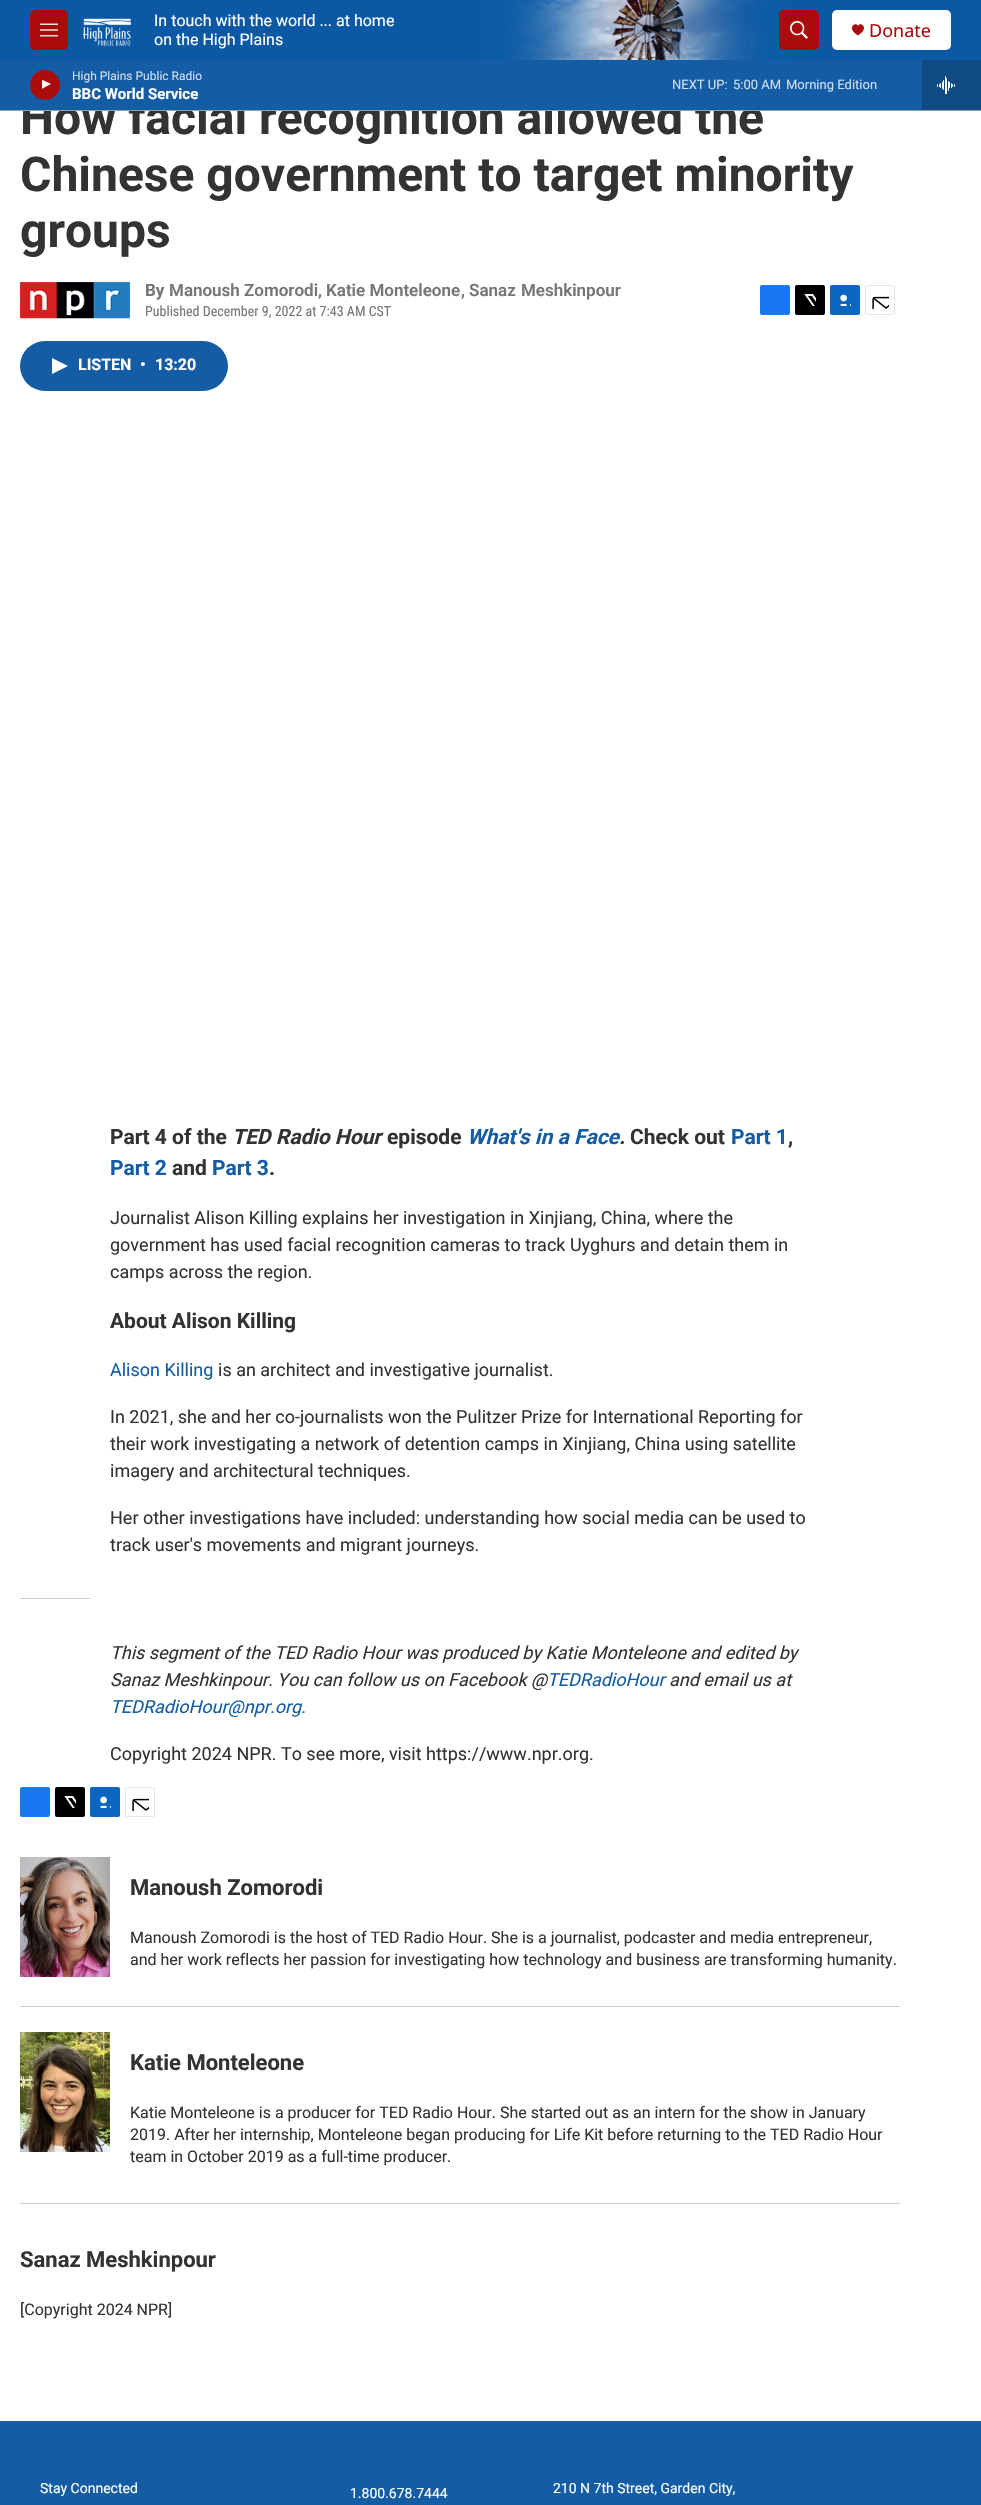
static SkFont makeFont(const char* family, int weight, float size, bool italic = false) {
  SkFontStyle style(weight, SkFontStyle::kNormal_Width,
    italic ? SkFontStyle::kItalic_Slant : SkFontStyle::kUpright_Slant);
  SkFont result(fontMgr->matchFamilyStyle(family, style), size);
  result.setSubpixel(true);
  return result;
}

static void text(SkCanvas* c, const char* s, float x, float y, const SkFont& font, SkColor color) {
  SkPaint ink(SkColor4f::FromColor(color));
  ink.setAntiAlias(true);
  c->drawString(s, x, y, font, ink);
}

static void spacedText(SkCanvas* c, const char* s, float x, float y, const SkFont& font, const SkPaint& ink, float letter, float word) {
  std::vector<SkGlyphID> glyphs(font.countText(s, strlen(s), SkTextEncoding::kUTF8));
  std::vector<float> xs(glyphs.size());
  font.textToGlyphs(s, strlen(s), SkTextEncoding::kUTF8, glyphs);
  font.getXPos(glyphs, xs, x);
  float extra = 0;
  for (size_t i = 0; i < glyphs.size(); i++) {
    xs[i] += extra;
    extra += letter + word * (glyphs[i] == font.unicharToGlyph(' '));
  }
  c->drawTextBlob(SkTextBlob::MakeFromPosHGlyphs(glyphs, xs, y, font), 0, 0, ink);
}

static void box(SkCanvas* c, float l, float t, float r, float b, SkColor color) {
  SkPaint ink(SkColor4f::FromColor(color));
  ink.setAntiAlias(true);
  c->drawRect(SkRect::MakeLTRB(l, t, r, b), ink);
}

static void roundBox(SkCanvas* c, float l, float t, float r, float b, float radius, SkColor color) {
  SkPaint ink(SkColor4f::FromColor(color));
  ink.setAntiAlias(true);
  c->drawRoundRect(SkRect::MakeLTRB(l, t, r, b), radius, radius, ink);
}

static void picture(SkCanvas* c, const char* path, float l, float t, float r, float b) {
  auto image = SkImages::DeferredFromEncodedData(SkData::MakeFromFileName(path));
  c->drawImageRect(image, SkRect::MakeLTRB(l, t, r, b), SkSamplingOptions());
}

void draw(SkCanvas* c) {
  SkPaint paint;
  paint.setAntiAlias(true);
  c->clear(0xffffffff);
  SkFont face1 = makeFont("Roboto", 700, 48);
  text(c, "How facial recognition allowed the", 20, 134, face1, 0xff333333);
  box(c, 0, 110, 981, 111, 0xffa0a0a0);
  picture(c, "img_01.png", 0, 0, 981, 60);
  roundBox(c, 30, 10, 68, 50, 5, 0xffaa0c0c);
  picture(c, "img_02.png", 40, 23, 58, 37);
  picture(c, "img_03.png", 83, 16, 131, 46);
  SkFont face2 = makeFont("Roboto", 400, 16);
  text(c, "In touch with the world ... at home", 154, 26, face2, 0xffffffff);
  text(c, "on the High Plains", 154, 45, face2, 0xffffffff);
  roundBox(c, 779, 10, 819, 50, 5, 0xffaa0c0c);
  picture(c, "img_04.png", 790, 21, 808, 39);
  roundBox(c, 832, 10, 951, 50, 5, 0xffffffff);
  paint.setColor(0xffaa0c0c);
  c->drawPath(SkPathBuilder().moveTo(858, 26).cubicTo(856, 21, 845.5f, 28, 858, 35.5f).cubicTo(870.5f, 28, 860, 21, 858, 26).close().detach(), paint);
  SkFont face3 = makeFont("Noto Sans", 400, 18);
  text(c, "Donate", 869, 37, face3, 0xffaa0c0c);
  box(c, 0, 60, 922, 110, 0xff145ca3);
  c->drawCircle(45, 85, 15, paint);
  c->save();
  c->clipRect(SkRect::MakeLTRB(42, 78, 54, 93));
  paint.setColor(0xffffffff);
  c->drawPath(SkPathBuilder().moveTo(41.5f, 79.5f).lineTo(51, 84).lineTo(41.5f, 89).close().detach(), paint);
  c->restore();
  SkFont face4 = makeFont("Roboto", 400, 12);
  text(c, "High Plains Public Radio", 72, 80, face4, 0xffd0deed);
  SkFont face5 = makeFont("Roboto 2", 700, 15);
  text(c, "BBC World Service", 72, 99, face5, 0xffffffff);
  SkFont face6 = makeFont("Roboto", 400, 13);
  text(c, "NEXT UP:", 672, 89, face6, 0xffd0deed);
  text(c, "5:00 AM", 733, 89, face6, 0xffd0deed);
  text(c, "Morning Edition", 786, 89, face6, 0xffd0deed);
  box(c, 922, 60, 981, 110, 0xff104a82);
  picture(c, "img_05.png", 937, 76, 955, 94);
  text(c, "Chinese government to target minority", 20, 191, face1, 0xff333333);
  text(c, "groups", 20, 247, face1, 0xff333333);
  picture(c, "img_06.png", 20, 282, 130, 319);
  SkFont face7 = makeFont("Roboto", 700, 17);
  text(c, "By", 145, 296, face7, 0xff767676);
  SkFont face8 = makeFont("Roboto", 600, 17);
  text(c, "Manoush Zomorodi,", 169, 296, face8, 0xff767676);
  text(c, "Katie Monteleone", 326, 296, face8, 0xff767676);
  text(c, ",", 461, 296, face8, 0xff767676);
  paint.setColor(0xff767676);
  spacedText(c, "Sanaz Meshkinpour", 469, 296, face8, paint, 0, 1);
  SkFont face9 = makeFont("Roboto Condensed", 400, 14);
  text(c, "Published December 9, 2022 at 7:43 AM CST", 145, 316, face9, 0xff767676);
  roundBox(c, 760, 285, 790, 315, 2, 0xff1778f2);
  roundBox(c, 795, 285, 825, 315, 2, 0xff000000);
  picture(c, "img_07.png", 804, 294, 816, 306);
  roundBox(c, 830, 285, 860, 315, 2, 0xff0a66c1);
  picture(c, "img_08.png", 840, 294, 851, 306);
  paint.setStyle(SkPaint::kStroke_Style);
  paint.setStrokeWidth(1);
  paint.setColor(0xffe6e6e6);
  c->drawRoundRect(SkRect::MakeLTRB(865.5f, 285.5f, 894.5f, 314.5f), 1.5f, 1.5f, paint);
  picture(c, "img_09.png", 872, 296, 889, 309);
  roundBox(c, 20, 341, 228, 391, 25, 0xff145ca3);
  paint.setStyle(SkPaint::kFill_Style);
  paint.setColor(0xffffffff);
  c->drawPath(SkPathBuilder().moveTo(52, 358).lineTo(68, 366).lineTo(52, 374).close().detach(), paint);
  SkFont face10 = makeFont("Roboto 2", 700, 16);
  text(c, "LISTEN", 78, 370, face10, 0xffffffff);
  text(c, "•", 140, 370, face10, 0xffffffff);
  text(c, "13:20", 155, 370, face10, 0xffffffff);
  SkFont face11 = makeFont("Roboto 2", 700, 21);
  text(c, "Part 4 of the", 110, 1144, face11, 0xff333333);
  SkFont face12 = makeFont("Roboto", 700, 21, true);
  text(c, "TED Radio Hour", 232, 1144, face12, 0xff333333);
  text(c, "episode", 387, 1144, face11, 0xff333333);
  text(c, "What's in a Face", 467, 1144, face12, 0xff145ca3);
  text(c, ".", 619, 1144, face12, 0xff333333);
  text(c, "Check out", 630, 1144, face11, 0xff333333);
  text(c, "Part 1", 731, 1144, face11, 0xff145ca3);
  text(c, ",", 788, 1144, face11, 0xff333333);
  text(c, "Part 2", 110, 1175, face11, 0xff145ca3);
  text(c, "and", 172, 1175, face11, 0xff333333);
  text(c, "Part 3", 212, 1175, face11, 0xff145ca3);
  text(c, ".", 269, 1175, face11, 0xff333333);
  SkFont face13 = makeFont("Roboto", 400, 18);
  text(c, "Journalist Alison Killing explains her investigation in Xinjiang, China, where the", 110, 1224, face13, 0xff333333);
  text(c, "government has used facial recognition cameras to track Uyghurs and detain them in", 110, 1251, face13, 0xff333333);
  text(c, "camps across the region.", 110, 1278, face13, 0xff333333);
  text(c, "About Alison Killing", 110, 1328, face11, 0xff333333);
  text(c, "Alison Killing", 110, 1376, face13, 0xff145ca3);
  text(c, "is an architect and investigative journalist.", 218, 1376, face13, 0xff333333);
  text(c, "In 2021, she and her co-journalists won the Pulitzer Prize for International Reporting for", 110, 1423, face13, 0xff333333);
  text(c, "their work investigating a network of detention camps in Xinjiang, China using satellite", 110, 1450, face13, 0xff333333);
  text(c, "imagery and architectural techniques.", 110, 1477, face13, 0xff333333);
  text(c, "Her other investigations have included: understanding how social media can be used to", 110, 1524, face13, 0xff333333);
  text(c, "track user's movements and migrant journeys.", 110, 1551, face13, 0xff333333);
  box(c, 20, 1598, 90, 1599, 0xffcccccc);
  SkFont face14 = makeFont("Roboto", 400, 18, true);
  text(c, "This segment of the TED Radio Hour was produced by Katie Monteleone and edited by", 110, 1659, face14, 0xff333333);
  text(c, "Sanaz Meshkinpour. You can follow us on Facebook @", 110, 1686, face14, 0xff333333);
  text(c, "TEDRadioHour", 547, 1686, face14, 0xff145ca3);
  text(c, "and email us at", 669, 1686, face14, 0xff333333);
  text(c, "TEDRadioHour@npr.org.", 110, 1713, face14, 0xff145ca3);
  text(c, "Copyright 2024 NPR. To see more, visit https://www.npr.org.", 110, 1760, face13, 0xff333333);
  roundBox(c, 20, 1787, 50, 1817, 2, 0xff1778f2);
  roundBox(c, 55, 1787, 85, 1817, 2, 0xff000000);
  picture(c, "img_07.png", 64, 1796, 76, 1808);
  roundBox(c, 90, 1787, 120, 1817, 2, 0xff0a66c1);
  picture(c, "img_08.png", 100, 1796, 111, 1808);
  paint.setStyle(SkPaint::kStroke_Style);
  paint.setColor(0xffe6e6e6);
  c->drawRoundRect(SkRect::MakeLTRB(125.5f, 1787.5f, 154.5f, 1816.5f), 1.5f, 1.5f, paint);
  picture(c, "img_09.png", 132, 1798, 149, 1811);
  box(c, 20, 2006, 900, 2007, 0xffcccccc);
  picture(c, "img_10.png", 20, 1857, 110, 1977);
  SkFont face15 = makeFont("Roboto", 700, 22);
  text(c, "Manoush Zomorodi", 130, 1895, face15, 0xff333333);
  text(c, "Manoush Zomorodi is the host of TED Radio Hour. She is a journalist, podcaster and media entrepreneur,", 130, 1943, face2, 0xff333333);
  text(c, "and her work reflects her passion for investigating how technology and business are transforming humanity.", 130, 1965, face2, 0xff333333);
  box(c, 20, 2203, 900, 2204, 0xffcccccc);
  picture(c, "img_11.png", 20, 2032, 110, 2152);
  text(c, "Katie Monteleone", 130, 2070, face15, 0xff333333);
  text(c, "Katie Monteleone is a producer for TED Radio Hour. She started out as an intern for the show in January", 130, 2118, face2, 0xff333333);
  text(c, "2019. After her internship, Monteleone began producing for Life Kit before returning to the TED Radio Hour", 130, 2140, face2, 0xff333333);
  text(c, "team in October 2019 as a full-time producer.", 130, 2162, face2, 0xff333333);
  text(c, "Sanaz Meshkinpour", 20, 2267, face15, 0xff333333);
  text(c, "[Copyright 2024 NPR]", 20, 2315, face2, 0xff333333);
  box(c, 0, 2421, 981, 2505, 0xff145ca3);
  SkFont face16 = makeFont("Roboto", 400, 14);
  text(c, "Stay Connected", 40, 2493, face16, 0xffffffff);
  text(c, "1.800.678.7444", 350, 2498, face16, 0xffffffff);
  text(c, "210 N 7th Street, Garden City,", 553, 2493, face16, 0xffffffff);
}
